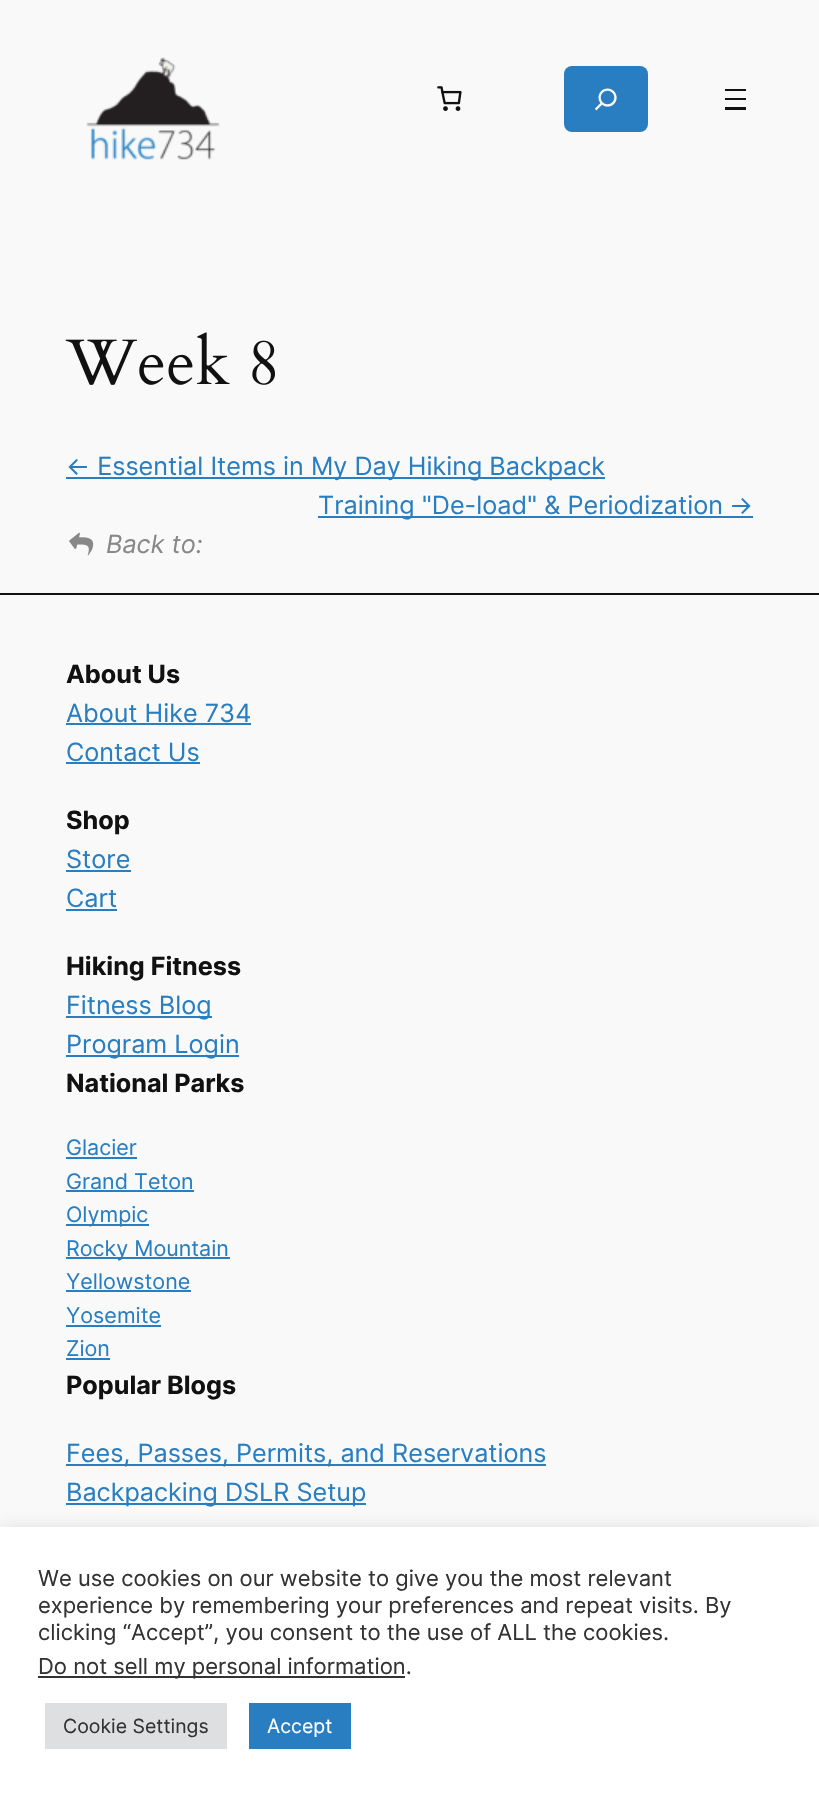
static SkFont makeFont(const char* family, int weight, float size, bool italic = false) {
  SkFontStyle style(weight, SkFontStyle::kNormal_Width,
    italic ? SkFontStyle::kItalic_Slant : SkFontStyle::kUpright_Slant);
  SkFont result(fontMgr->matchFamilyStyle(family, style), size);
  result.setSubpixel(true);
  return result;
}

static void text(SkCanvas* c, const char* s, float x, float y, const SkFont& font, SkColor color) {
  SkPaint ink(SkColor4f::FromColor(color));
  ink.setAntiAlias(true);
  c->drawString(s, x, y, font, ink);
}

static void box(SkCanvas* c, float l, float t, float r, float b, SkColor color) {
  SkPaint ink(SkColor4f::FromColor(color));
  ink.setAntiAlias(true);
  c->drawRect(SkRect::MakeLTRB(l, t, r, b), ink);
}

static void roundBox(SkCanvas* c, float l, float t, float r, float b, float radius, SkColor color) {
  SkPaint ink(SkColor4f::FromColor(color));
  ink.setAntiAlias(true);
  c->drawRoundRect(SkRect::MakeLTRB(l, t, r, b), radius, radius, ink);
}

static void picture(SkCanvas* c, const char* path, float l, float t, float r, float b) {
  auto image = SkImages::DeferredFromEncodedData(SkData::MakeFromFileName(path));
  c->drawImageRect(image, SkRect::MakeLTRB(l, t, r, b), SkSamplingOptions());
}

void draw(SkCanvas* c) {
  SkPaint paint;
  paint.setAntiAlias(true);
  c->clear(0xfff9f9f9);
  picture(c, "img_01.png", 86, 57, 220, 160);
  picture(c, "img_02.png", 437, 86, 462, 111);
  roundBox(c, 564, 66, 648, 132, 8, 0xff297ec1);
  picture(c, "img_03.png", 594, 88, 617, 111);
  box(c, 725, 89, 746, 91, 0xff111111);
  box(c, 725, 98, 746, 100, 0xff111111);
  box(c, 725, 107, 746, 110, 0xff111111);
  picture(c, "img_04.png", 65, 332, 275, 385);
  box(c, 66, 477, 605, 479, 0xff297ec1);
  SkFont face1 = makeFont("Inter", 400, 25.2f);
  text(c, "← Essential Items in My Day Hiking Backpack", 66, 475, face1, 0xff297ec1);
  box(c, 318, 516, 753, 518, 0xff297ec1);
  text(c, "Training \"De-load\" & Periodization", 318, 514, face1, 0xff297ec1);
  text(c, "→", 729, 514, face1, 0xff297ec1);
  picture(c, "img_05.png", 69, 532, 94, 556);
  SkFont face2 = makeFont("Inter", 400, 25.2f, true);
  text(c, "Back to:", 106, 553, face2, 0xff888888);
  box(c, 0, 593, 819, 595, 0xff111111);
  SkFont face3 = makeFont("Inter", 700, 25.2f);
  text(c, "About Us", 66, 683, face3, 0xff111111);
  text(c, "About Hike 734", 66, 722, face1, 0xff297ec1);
  box(c, 66, 723, 251, 725, 0xff297ec1);
  text(c, "Contact Us", 66, 761, face1, 0xff297ec1);
  box(c, 66, 762, 200, 764, 0xff297ec1);
  text(c, "Shop", 66, 829, face3, 0xff111111);
  text(c, "Store", 66, 868, face1, 0xff297ec1);
  box(c, 66, 870, 131, 872, 0xff297ec1);
  text(c, "Cart", 66, 907, face1, 0xff297ec1);
  box(c, 66, 909, 117, 911, 0xff297ec1);
  text(c, "Hiking Fitness", 66, 975, face3, 0xff111111);
  box(c, 66, 1016, 212, 1018, 0xff297ec1);
  text(c, "Fitness Blog", 66, 1014, face1, 0xff297ec1);
  box(c, 66, 1055, 239, 1057, 0xff297ec1);
  text(c, "Program Login", 66, 1053, face1, 0xff297ec1);
  text(c, "National Parks", 66, 1092, face3, 0xff111111);
  SkFont face4 = makeFont("Inter", 400, 21.5f);
  text(c, "Glacier", 66, 1155, face4, 0xff297ec1);
  box(c, 66, 1157, 137, 1159, 0xff297ec1);
  text(c, "Grand Teton", 66, 1189, face4, 0xff297ec1);
  box(c, 66, 1190, 194, 1192, 0xff297ec1);
  box(c, 66, 1224, 149, 1226, 0xff297ec1);
  text(c, "Olympic", 66, 1222, face4, 0xff297ec1);
  box(c, 66, 1257, 230, 1259, 0xff297ec1);
  text(c, "Rocky Mountain", 66, 1256, face4, 0xff297ec1);
  text(c, "Yellowstone", 66, 1289, face4, 0xff297ec1);
  box(c, 66, 1290, 191, 1292, 0xff297ec1);
  text(c, "Yosemite", 66, 1323, face4, 0xff297ec1);
  box(c, 66, 1325, 161, 1327, 0xff297ec1);
  text(c, "Zion", 66, 1356, face4, 0xff297ec1);
  box(c, 66, 1358, 110, 1360, 0xff297ec1);
  text(c, "Popular Blogs", 66, 1394, face3, 0xff111111);
  box(c, 66, 1464, 546, 1466, 0xff297ec1);
  text(c, "Fees, Passes, Permits, and Reservations", 66, 1462, face1, 0xff297ec1);
  box(c, 66, 1503, 366, 1505, 0xff297ec1);
  text(c, "Backpacking DSLR Setup", 66, 1501, face1, 0xff297ec1);
  paint.setColor(0x4dacabab);
  paint.setMaskFilter(SkMaskFilter::MakeBlur(kNormal_SkBlurStyle, 7.5f));
  c->drawRect(SkRect::MakeLTRB(0, 1526, 819, 1793), paint);
  paint.setMaskFilter(nullptr);
  box(c, 0, 1527, 819, 1793, 0xffffffff);
  SkFont face5 = makeFont("Inter", 400, 22);
  text(c, "We use cookies on our website to give you the most relevant", 38, 1586, face5, 0xff333333);
  text(c, "experience by remembering your preferences and repeat visits. By", 38, 1613, face5, 0xff333333);
  text(c, "clicking “Accept”, you consent to the use of ALL the cookies.", 38, 1640, face5, 0xff333333);
  box(c, 38, 1676, 405, 1678, 0xff333333);
  text(c, "Do not sell my personal information.", 38, 1674, face5, 0xff333333);
  box(c, 45, 1703, 227, 1749, 0xffdedfe0);
  SkFont face6 = makeFont("Inter", 400, 19.5f);
  text(c, "Cookie Settings", 63, 1733, face6, 0xff333333);
  box(c, 249, 1703, 351, 1749, 0xff297ec1);
  text(c, "Accept", 267, 1733, face6, 0xffffffff);
}
